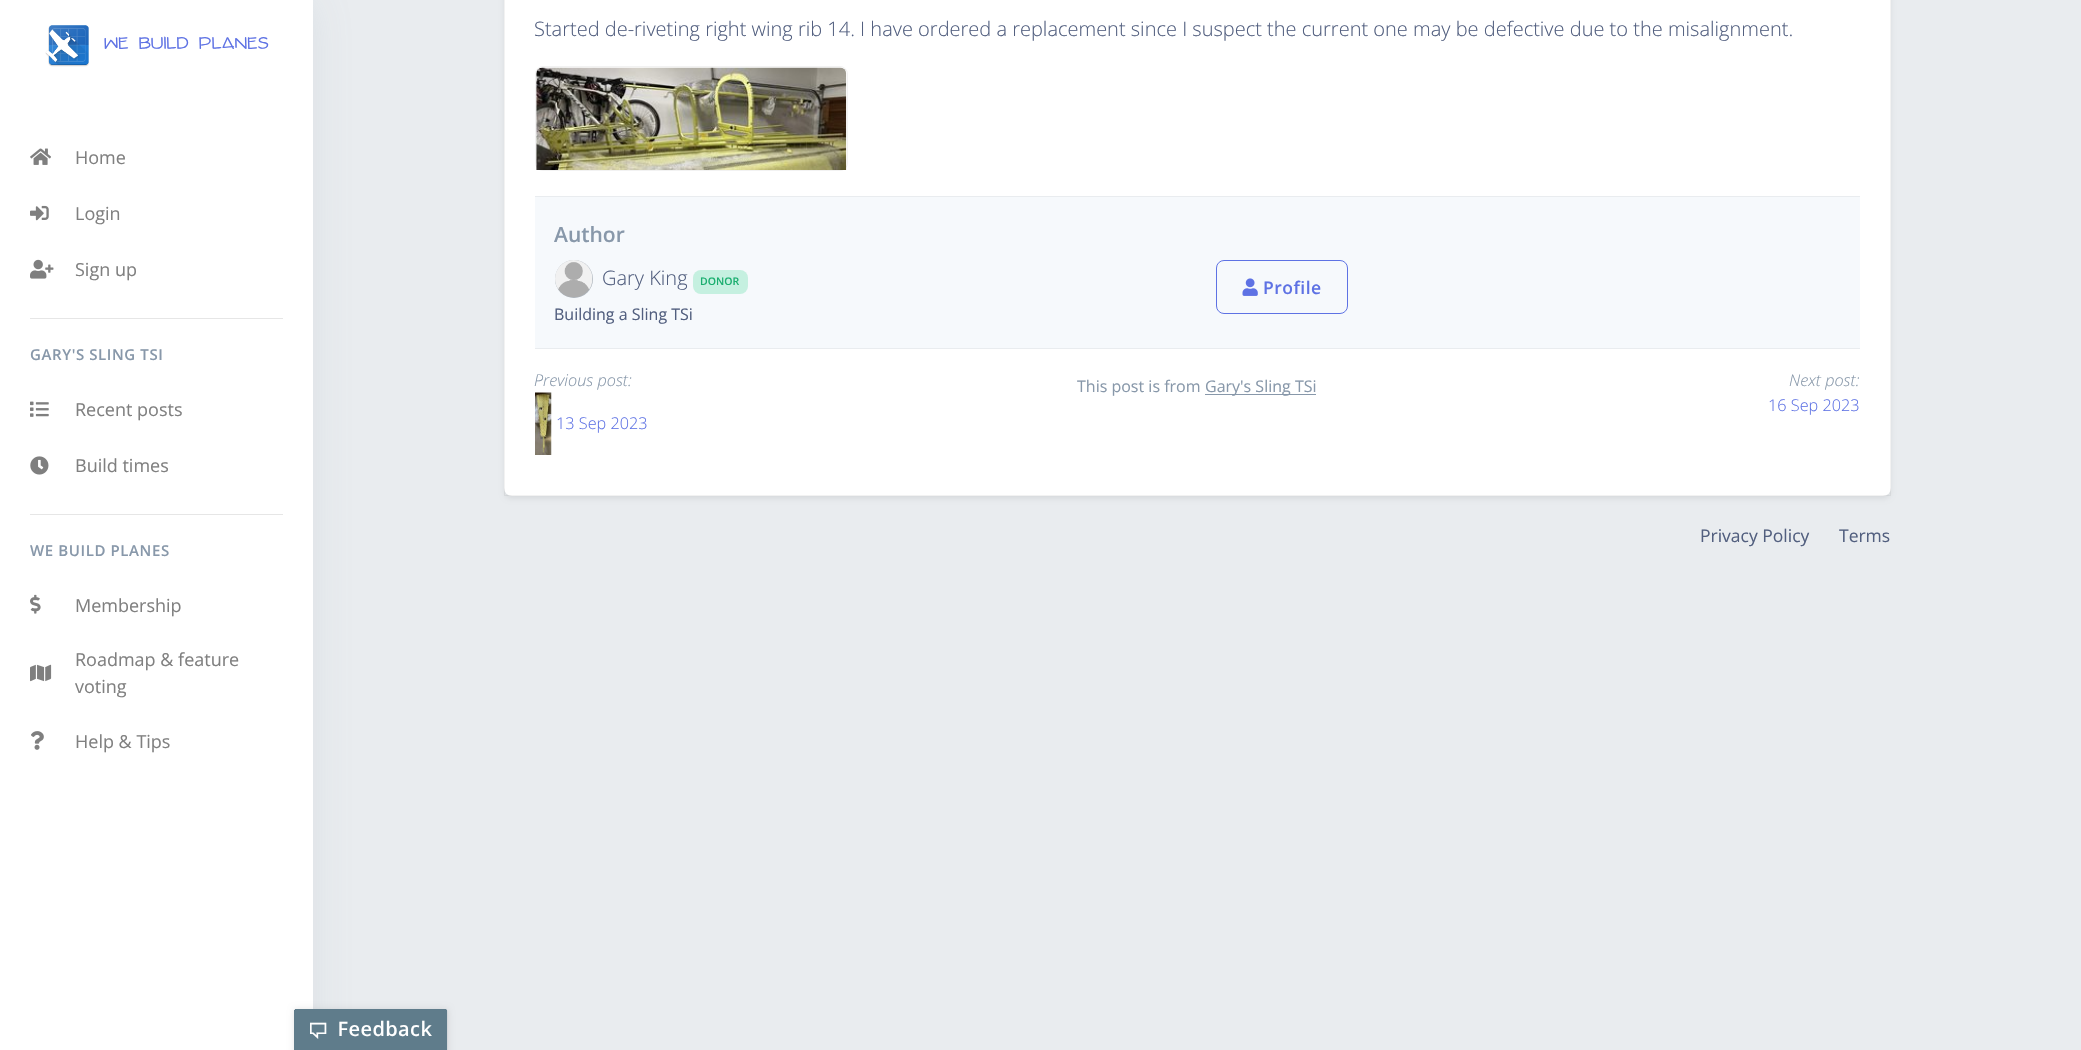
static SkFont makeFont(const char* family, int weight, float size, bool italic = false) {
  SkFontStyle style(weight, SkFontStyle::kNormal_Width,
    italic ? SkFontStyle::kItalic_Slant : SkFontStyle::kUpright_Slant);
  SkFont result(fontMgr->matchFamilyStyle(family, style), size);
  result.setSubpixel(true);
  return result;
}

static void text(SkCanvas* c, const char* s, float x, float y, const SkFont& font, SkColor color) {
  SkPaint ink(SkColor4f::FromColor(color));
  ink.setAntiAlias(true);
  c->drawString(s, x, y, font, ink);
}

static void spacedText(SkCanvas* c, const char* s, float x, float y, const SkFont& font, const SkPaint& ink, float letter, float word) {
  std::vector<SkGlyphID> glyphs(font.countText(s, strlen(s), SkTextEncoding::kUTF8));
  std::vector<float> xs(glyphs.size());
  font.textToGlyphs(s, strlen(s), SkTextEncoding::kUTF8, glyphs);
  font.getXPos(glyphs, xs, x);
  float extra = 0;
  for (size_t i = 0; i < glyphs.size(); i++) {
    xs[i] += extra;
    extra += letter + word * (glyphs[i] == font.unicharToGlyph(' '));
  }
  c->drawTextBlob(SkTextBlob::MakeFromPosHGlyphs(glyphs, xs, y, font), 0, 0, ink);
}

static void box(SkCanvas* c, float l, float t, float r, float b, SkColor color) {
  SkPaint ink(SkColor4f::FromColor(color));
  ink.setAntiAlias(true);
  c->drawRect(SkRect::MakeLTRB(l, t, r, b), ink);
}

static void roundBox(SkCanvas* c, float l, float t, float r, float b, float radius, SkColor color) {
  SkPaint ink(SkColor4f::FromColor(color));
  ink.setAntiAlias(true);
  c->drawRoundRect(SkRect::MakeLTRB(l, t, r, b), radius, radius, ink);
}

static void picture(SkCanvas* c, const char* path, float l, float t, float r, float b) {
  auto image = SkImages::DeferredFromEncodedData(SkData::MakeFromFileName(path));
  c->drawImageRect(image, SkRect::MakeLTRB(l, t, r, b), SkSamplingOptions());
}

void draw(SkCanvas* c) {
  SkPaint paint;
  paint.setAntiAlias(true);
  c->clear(0xffe9ecef);
  paint.setColor(0x268898aa);
  paint.setMaskFilter(SkMaskFilter::MakeBlur(kNormal_SkBlurStyle, 20));
  c->drawRect(SkRect::MakeLTRB(0, 0, 313, 1050), paint);
  paint.setMaskFilter(nullptr);
  box(c, 0, 0, 313, 1050, 0xffffffff);
  picture(c, "img_01.png", 45, 25, 89, 67);
  SkFont face1 = makeFont("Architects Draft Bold", 700, 20);
  text(c, "we build planes", 104, 49, face1, 0xff5e72e4);
  picture(c, "img_02.png", 30, 148, 51, 165);
  SkFont face2 = makeFont("Open Sans", 400, 18);
  text(c, "Home", 75, 164, face2, 0xff808080);
  picture(c, "img_03.png", 30, 205, 49, 221);
  text(c, "Login", 75, 220, face2, 0xff808080);
  picture(c, "img_04.png", 30, 259, 54, 279);
  text(c, "Sign up", 75, 276, face2, 0xff808080);
  box(c, 30, 318, 283, 319, 0xffe6e6e6);
  SkFont face3 = makeFont("Open Sans", 600, 15);
  paint.setColor(0xff8898aa);
  spacedText(c, "GARY'S SLING TSI", 30, 360, face3, paint, 0.6f, 0);
  picture(c, "img_05.png", 30, 401, 49, 417);
  text(c, "Recent posts", 75, 416, face2, 0xff808080);
  picture(c, "img_06.png", 30, 456, 49, 475);
  text(c, "Build times", 75, 472, face2, 0xff808080);
  box(c, 30, 514, 283, 515, 0xffe6e6e6);
  spacedText(c, "WE BUILD PLANES", 30, 556, face3, paint, 0.6f, 0);
  picture(c, "img_07.png", 30, 594, 41, 614);
  text(c, "Membership", 75, 612, face2, 0xff808080);
  text(c, "Roadmap & feature", 75, 666, face2, 0xff808080);
  picture(c, "img_08.png", 30, 664, 52, 682);
  text(c, "voting", 75, 693, face2, 0xff808080);
  picture(c, "img_09.png", 31, 731, 44, 750);
  text(c, "Help & Tips", 75, 748, face2, 0xff808080);
  paint.setColor(0x12000000);
  paint.setMaskFilter(SkMaskFilter::MakeBlur(kNormal_SkBlurStyle, 2.5f));
  c->drawRoundRect(SkRect::MakeLTRB(504, -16, 1891, 499), 8, 8, paint);
  paint.setMaskFilter(nullptr);
  roundBox(c, 504, -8, 1891, 496, 8, 0xffffffff);
  paint.setStyle(SkPaint::kStroke_Style);
  paint.setStrokeWidth(1);
  paint.setColor(0x0d000000);
  c->drawRect(SkRect::MakeLTRB(504.5f, -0.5f, 1890.5f, 495.5f), paint);
  SkFont face4 = makeFont("Open Sans", 300, 20);
  text(c, "Started de-riveting right wing rib 14. I have ordered a replacement since I suspect the current one may be defective due to the misalignment.", 534, 36, face4, 0xff525f7f);
  paint.setColor(0xfff2f2f2);
  c->drawRoundRect(SkRect::MakeLTRB(535.5f, 66.5f, 847.5f, 170.5f), 7.5f, 7.5f, paint);
  picture(c, "img_10.png", 536, 67, 847, 170);
  box(c, 535, 197, 1860, 348, 0xfff6f9fc);
  box(c, 535, 196, 1860, 197, 0xffe9ecef);
  box(c, 535, 348, 1860, 349, 0xffe9ecef);
  SkFont face5 = makeFont("Open Sans", 600, 21);
  text(c, "Author", 554, 242, face5, 0xff8898aa);
  paint.setStyle(SkPaint::kFill_Style);
  paint.setColor(0xffadb5bd);
  c->drawCircle(574, 279, 19, paint);
  picture(c, "img_11.png", 555, 260, 593, 298);
  text(c, "Gary King", 602, 285, face4, 0xff525f7f);
  roundBox(c, 693, 270, 748, 294, 8, 0xffc5f0e0);
  SkFont face6 = makeFont("Open Sans", 600, 10.5f);
  text(c, "DONOR", 700, 285, face6, 0xff1aae6f);
  SkFont face7 = makeFont("Open Sans", 400, 16);
  text(c, "Building a Sling TSi", 554, 320, face7, 0xff525f7f);
  paint.setStyle(SkPaint::kStroke_Style);
  paint.setColor(0xff5e72e4);
  c->drawRoundRect(SkRect::MakeLTRB(1216.5f, 260.5f, 1347.5f, 313.5f), 7.5f, 7.5f, paint);
  picture(c, "img_12.png", 1242, 278, 1258, 296);
  SkFont face8 = makeFont("Open Sans", 600, 17.5f);
  paint.setStyle(SkPaint::kFill_Style);
  spacedText(c, "Profile", 1263, 294, face8, paint, 0.5f, 0);
  SkFont face9 = makeFont("Open Sans", 300, 16.25f, true);
  text(c, "Previous post:", 534, 386, face9, 0xff8898aa);
  picture(c, "img_13.png", 535, 392, 552, 455);
  SkFont face10 = makeFont("Open Sans", 300, 16.25f);
  text(c, "13 Sep 2023", 556, 429, face10, 0xff5e72e4);
  text(c, "This post is from", 1077, 392, face7, 0xff8898aa);
  box(c, 1205, 394, 1316, 395, 0xff8898aa);
  text(c, "Gary's Sling TSi", 1205, 392, face7, 0xff8898aa);
  text(c, "Next post:", 1789, 386, face9, 0xff8898aa);
  text(c, "16 Sep 2023", 1768, 411, face10, 0xff5e72e4);
  SkFont face11 = makeFont("Open Sans", 400, 17.5f);
  text(c, "Privacy Policy", 1700, 542, face11, 0xff525f7f);
  text(c, "Terms", 1839, 542, face11, 0xff525f7f);
  paint.setColor(0x1a000000);
  paint.setMaskFilter(SkMaskFilter::MakeBlur(kNormal_SkBlurStyle, 3));
  c->drawRoundRect(SkRect::MakeLTRB(294, 1009, 448, 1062), 2.5f, 2.5f, paint);
  paint.setMaskFilter(nullptr);
  picture(c, "img_14.png", 294, 1009, 448, 1050);
}
